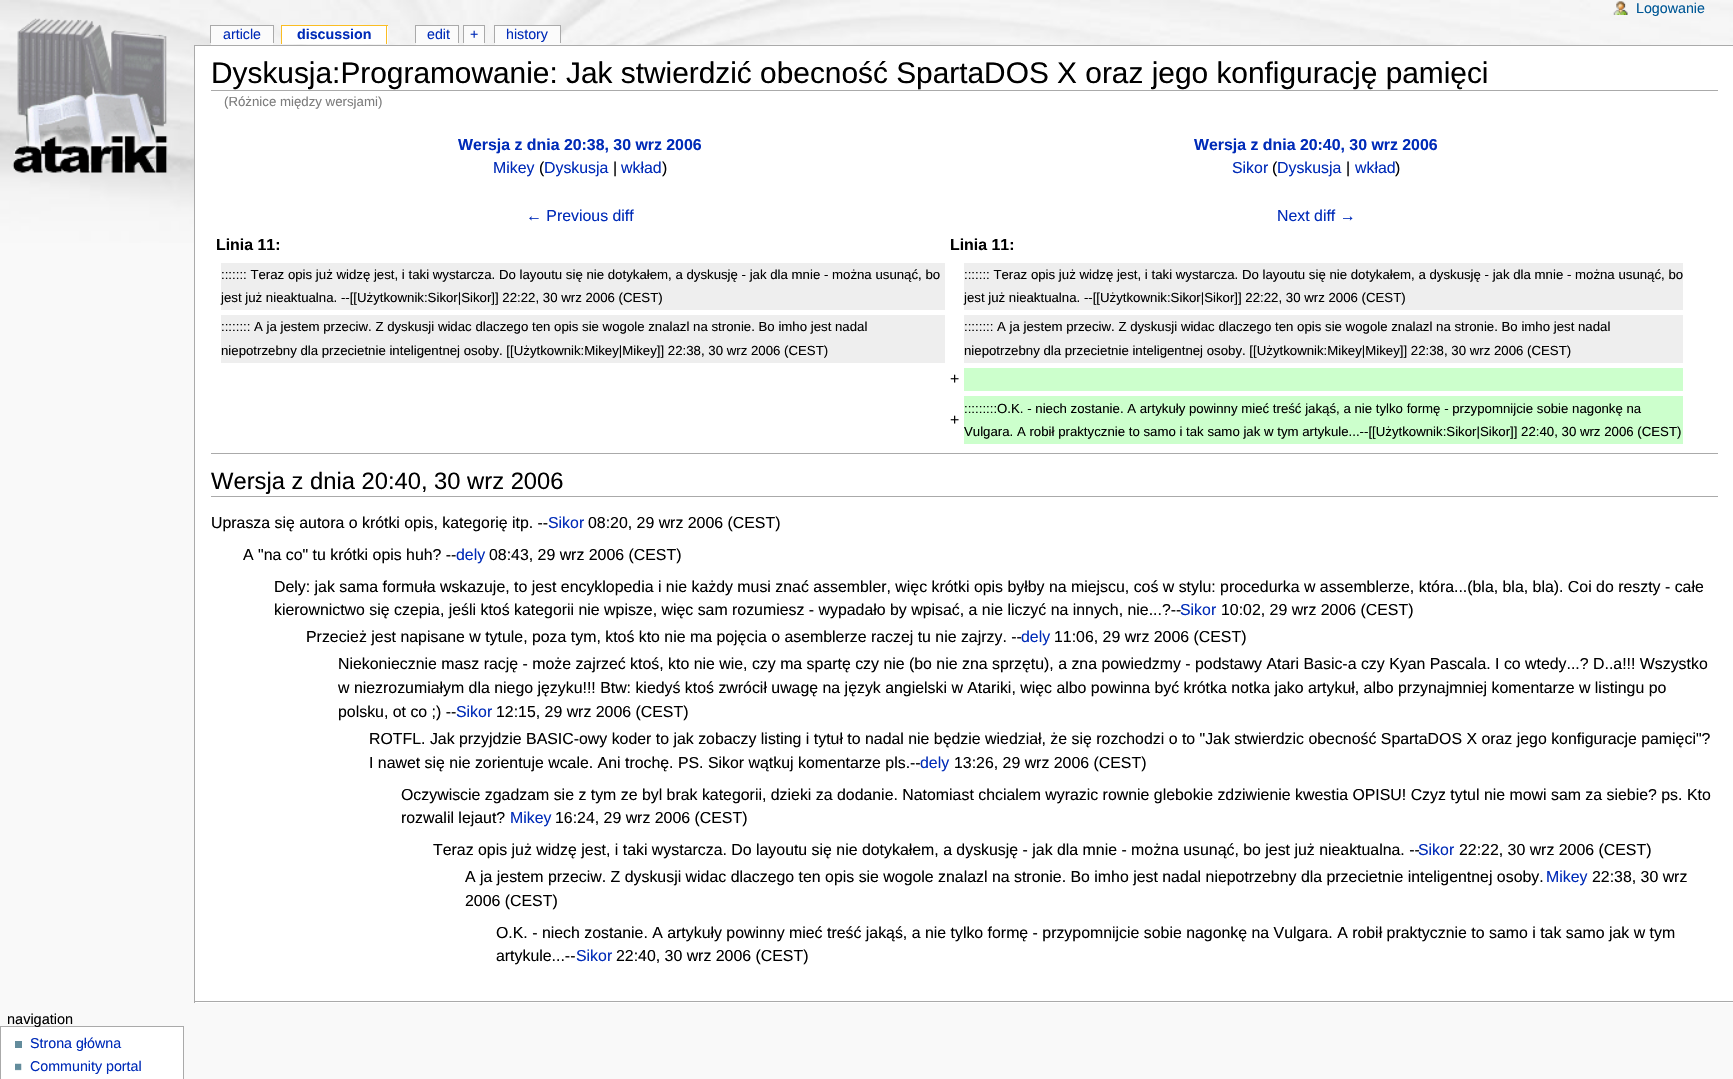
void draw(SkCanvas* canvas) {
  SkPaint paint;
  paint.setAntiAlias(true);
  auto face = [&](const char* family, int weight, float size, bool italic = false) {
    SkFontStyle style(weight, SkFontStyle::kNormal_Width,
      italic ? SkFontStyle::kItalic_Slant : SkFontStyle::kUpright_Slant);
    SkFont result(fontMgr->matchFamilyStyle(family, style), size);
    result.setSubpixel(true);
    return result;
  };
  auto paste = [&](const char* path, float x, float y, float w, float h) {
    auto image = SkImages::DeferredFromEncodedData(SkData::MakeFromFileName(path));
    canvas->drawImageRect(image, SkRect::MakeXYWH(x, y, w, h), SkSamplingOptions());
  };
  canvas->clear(0xfff9f9f9);
  paste("img/1.png", 0, 0, 1733, 243);
  paste("img/2.png", 1613, 1, 15, 14);
  paste("img/3.png", 12, 18, 156, 155);
  {
    const struct { float x, y, w, h; SkColor color; } items[] = {
      {210, 25, 64, 1, 0xffaaaaaa},
      {273, 25, 1, 18, 0xffaaaaaa},
      {210, 25, 1, 18, 0xffaaaaaa},
      {211, 26, 62, 19, 0xfffbfbfb},
      {282, 26, 106, 18, 0xffffffff},
      {281, 25, 107, 1, 0xfffabd23},
      {386, 25, 1, 19, 0xfffabd23},
      {281, 25, 1, 19, 0xfffabd23},
      {415, 25, 44, 1, 0xffaaaaaa},
      {458, 25, 1, 18, 0xffaaaaaa},
      {415, 25, 1, 18, 0xffaaaaaa},
      {416, 26, 42, 19, 0xfffbfbfb},
      {463, 25, 22, 1, 0xffaaaaaa},
      {484, 25, 1, 18, 0xffaaaaaa},
      {463, 25, 1, 18, 0xffaaaaaa},
      {464, 26, 20, 19, 0xfffbfbfb},
      {494, 25, 67, 1, 0xffaaaaaa},
      {560, 25, 1, 18, 0xffaaaaaa},
      {494, 25, 1, 18, 0xffaaaaaa},
      {495, 26, 65, 19, 0xfffbfbfb},
    };
    for (auto [x, y, w, h, color] : items) {
      paint.setColor(color);
      canvas->drawRect(SkRect::MakeXYWH(x, y, w, h), paint);
    }
  }
  paint.setColor(0xffffffff);
  canvas->drawRect(SkRect::MakeXYWH(0.5f, 1026.5f, 183, 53), paint);
  paint.setStroke(true);
  paint.setStrokeWidth(1);
  paint.setColor(0xffaaaaaa);
  canvas->drawRect(SkRect::MakeXYWH(0.5f, 1026.5f, 183, 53), paint);
  paint.setStroke(false);
  paint.setColor(0xff638c9c);
  canvas->drawRect(SkRect::MakeXYWH(15, 1041, 7, 7), paint);
  paste("img/4.png", 15, 1063, 7, 8);
  {
    const struct { float x, y, w, h; SkColor color; } items[] = {
      {195, 46, 1538, 957, 0xffffffff},
      {194, 45, 1539, 1, 0xffaaaaaa},
      {194, 1001, 1539, 1, 0xffaaaaaa},
      {194, 45, 1, 958, 0xffaaaaaa},
      {211, 90, 1507, 1, 0xffaaaaaa},
      {221, 263, 724, 47, 0xffeeeeee},
      {964, 263, 719, 47, 0xffeeeeee},
      {221, 315, 724, 48, 0xffeeeeee},
      {964, 315, 719, 48, 0xffeeeeee},
      {964, 368, 719, 23, 0xffccffcc},
      {964, 396, 719, 48, 0xffccffcc},
      {211, 453, 1507, 1, 0xffaaaaaa},
      {211, 496, 1507, 1, 0xffaaaaaa},
    };
    for (auto [x, y, w, h, color] : items) {
      paint.setColor(color);
      canvas->drawRect(SkRect::MakeXYWH(x, y, w, h), paint);
    }
  }
  auto f0 = face("Liberation Sans", 400, 14.25f);
  paint.setColor(0xff005896);
  canvas->drawString("Logowanie", 1636, 13, f0, paint);
  paint.setColor(0xff002bb8);
  canvas->drawString("article", 223, 39, f0, paint);
  auto f1 = face("Liberation Sans", 700, 14.25f);
  canvas->drawString("discussion", 297, 39, f1, paint);
  {
    const struct { const char* s; float x, y; } items[] = {
      {"edit", 427, 39},
      {"+", 470, 39},
      {"history", 506, 39},
    };
    for (auto [s, x, y] : items) {
      canvas->drawString(s, x, y, f0, paint);
    }
  }
  auto f2 = face("Liberation Sans", 400, 14.5f);
  paint.setColor(0xff000000);
  canvas->drawString("navigation", 7, 1024, f2, paint);
  paint.setColor(0xff002bb8);
  canvas->drawString("Strona główna", 30, 1048, f0, paint);
  canvas->drawString("Community portal", 30, 1071, f0, paint);
  auto f3 = face("Liberation Sans", 400, 29.85f);
  paint.setColor(0xff000000);
  canvas->drawString("Dyskusja:Programowanie: Jak stwierdzić obecność SpartaDOS X oraz jego konfigurację pamięci", 211, 83, f3, paint);
  auto f4 = face("Liberation Sans", 400, 13.25f);
  paint.setColor(0xff7d7d7d);
  canvas->drawString("(Różnice między wersjami)", 224, 106, f4, paint);
  auto f5 = face("Liberation Sans", 700, 15.88f);
  paint.setColor(0xff002bb8);
  canvas->drawString("Wersja z dnia 20:38, 30 wrz 2006", 458, 150, f5, paint);
  auto f6 = face("Liberation Sans", 400, 15.88f);
  canvas->drawString("Mikey", 493, 173, f6, paint);
  paint.setColor(0xff000000);
  canvas->drawString("(", 539, 173, f6, paint);
  paint.setColor(0xff002bb8);
  canvas->drawString("Dyskusja", 544, 173, f6, paint);
  paint.setColor(0xff000000);
  canvas->drawString("|", 613, 173, f6, paint);
  paint.setColor(0xff002bb8);
  canvas->drawString("wkład", 621, 173, f6, paint);
  paint.setColor(0xff000000);
  canvas->drawString(")", 662, 173, f6, paint);
  paint.setColor(0xff002bb8);
  canvas->drawString("← Previous diff", 526, 221, f6, paint);
  canvas->drawString("Wersja z dnia 20:40, 30 wrz 2006", 1194, 150, f5, paint);
  canvas->drawString("Sikor", 1232, 173, f6, paint);
  paint.setColor(0xff000000);
  canvas->drawString("(", 1272, 173, f6, paint);
  paint.setColor(0xff002bb8);
  canvas->drawString("Dyskusja", 1277, 173, f6, paint);
  paint.setColor(0xff000000);
  canvas->drawString("|", 1346, 173, f6, paint);
  paint.setColor(0xff002bb8);
  canvas->drawString("wkład", 1355, 173, f6, paint);
  paint.setColor(0xff000000);
  canvas->drawString(")", 1395, 173, f6, paint);
  paint.setColor(0xff002bb8);
  canvas->drawString("Next diff →", 1277, 221, f6, paint);
  paint.setColor(0xff000000);
  canvas->drawString("Linia 11:", 216, 250, f5, paint);
  canvas->drawString("Linia 11:", 950, 250, f5, paint);
  auto f7 = face("Liberation Sans", 400, 13.23f);
  {
    const struct { const char* s; float x, y; } items[] = {
      {"::::::: Teraz opis już widzę jest, i taki wystarcza. Do layoutu się nie dotykałem, a dyskusję - jak dla mnie - można usunąć, bo", 221, 279},
      {"jest już nieaktualna. --[[Użytkownik:Sikor|Sikor]] 22:22, 30 wrz 2006 (CEST)", 221, 302},
      {"::::::: Teraz opis już widzę jest, i taki wystarcza. Do layoutu się nie dotykałem, a dyskusję - jak dla mnie - można usunąć, bo", 964, 279},
      {"jest już nieaktualna. --[[Użytkownik:Sikor|Sikor]] 22:22, 30 wrz 2006 (CEST)", 964, 302},
      {":::::::: A ja jestem przeciw. Z dyskusji widac dlaczego ten opis sie wogole znalazl na stronie. Bo imho jest nadal", 221, 331},
      {"niepotrzebny dla przecietnie inteligentnej osoby. [[Użytkownik:Mikey|Mikey]] 22:38, 30 wrz 2006 (CEST)", 221, 355},
      {":::::::: A ja jestem przeciw. Z dyskusji widac dlaczego ten opis sie wogole znalazl na stronie. Bo imho jest nadal", 964, 331},
      {"niepotrzebny dla przecietnie inteligentnej osoby. [[Użytkownik:Mikey|Mikey]] 22:38, 30 wrz 2006 (CEST)", 964, 355},
    };
    for (auto [s, x, y] : items) {
      canvas->drawString(s, x, y, f7, paint);
    }
  }
  canvas->drawString("+", 950, 384, f6, paint);
  canvas->drawString("+", 950, 425, f6, paint);
  canvas->drawString(":::::::::O.K. - niech zostanie. A artykuły powinny mieć treść jakąś, a nie tylko formę - przypomnijcie sobie nagonkę na", 964, 413, f7, paint);
  canvas->drawString("Vulgara. A robił praktycznie to samo i tak samo jak w tym artykule...--[[Użytkownik:Sikor|Sikor]] 22:40, 30 wrz 2006 (CEST)", 964, 436, f7, paint);
  auto f8 = face("Liberation Sans", 400, 23.75f);
  canvas->drawString("Wersja z dnia 20:40, 30 wrz 2006", 211, 489, f8, paint);
  canvas->drawString("Uprasza się autora o krótki opis, kategorię itp. --", 211, 528, f6, paint);
  paint.setColor(0xff002bb8);
  canvas->drawString("Sikor", 548, 528, f6, paint);
  paint.setColor(0xff000000);
  canvas->drawString("08:20, 29 wrz 2006 (CEST)", 588, 528, f6, paint);
  canvas->drawString("A \"na co\" tu krótki opis huh? --", 243, 560, f6, paint);
  paint.setColor(0xff002bb8);
  canvas->drawString("dely", 456, 560, f6, paint);
  paint.setColor(0xff000000);
  {
    const struct { const char* s; float x, y; } items[] = {
      {"08:43, 29 wrz 2006 (CEST)", 489, 560},
      {"Dely: jak sama formuła wskazuje, to jest encyklopedia i nie każdy musi znać assembler, więc krótki opis byłby na miejscu, coś w stylu: procedurka w assemblerze, która...(bla, bla, bla). Coi do reszty - całe", 274, 592},
      {"kierownictwo się czepia, jeśli ktoś kategorii nie wpisze, więc sam rozumiesz - wypadało by wpisać, a nie liczyć na innych, nie...?--", 274, 615},
    };
    for (auto [s, x, y] : items) {
      canvas->drawString(s, x, y, f6, paint);
    }
  }
  paint.setColor(0xff002bb8);
  canvas->drawString("Sikor", 1180, 615, f6, paint);
  paint.setColor(0xff000000);
  canvas->drawString("10:02, 29 wrz 2006 (CEST)", 1221, 615, f6, paint);
  canvas->drawString("Przecież jest napisane w tytule, poza tym, ktoś kto nie ma pojęcia o asemblerze raczej tu nie zajrzy. --", 306, 642, f6, paint);
  paint.setColor(0xff002bb8);
  canvas->drawString("dely", 1021, 642, f6, paint);
  paint.setColor(0xff000000);
  {
    const struct { const char* s; float x, y; } items[] = {
      {"11:06, 29 wrz 2006 (CEST)", 1054, 642},
      {"Niekoniecznie masz rację - może zajrzeć ktoś, kto nie wie, czy ma spartę czy nie (bo nie zna sprzętu), a zna powiedzmy - podstawy Atari Basic-a czy Kyan Pascala. I co wtedy...? D..a!!! Wszystko", 338, 669},
      {"w niezrozumiałym dla niego języku!!! Btw: kiedyś ktoś zwrócił uwagę na język angielski w Atariki, więc albo powinna być krótka notka jako artykuł, albo przynajmniej komentarze w listingu po", 338, 693},
      {"polsku, ot co ;) --", 338, 717},
    };
    for (auto [s, x, y] : items) {
      canvas->drawString(s, x, y, f6, paint);
    }
  }
  paint.setColor(0xff002bb8);
  canvas->drawString("Sikor", 456, 717, f6, paint);
  paint.setColor(0xff000000);
  {
    const struct { const char* s; float x, y; } items[] = {
      {"12:15, 29 wrz 2006 (CEST)", 496, 717},
      {"ROTFL. Jak przyjdzie BASIC-owy koder to jak zobaczy listing i tytuł to nadal nie będzie wiedział, że się rozchodzi o to \"Jak stwierdzic obecność SpartaDOS X oraz jego konfiguracje pamięci\"?", 369, 744},
      {"I nawet się nie zorientuje wcale. Ani trochę. PS. Sikor wątkuj komentarze pls.--", 369, 768},
    };
    for (auto [s, x, y] : items) {
      canvas->drawString(s, x, y, f6, paint);
    }
  }
  paint.setColor(0xff002bb8);
  canvas->drawString("dely", 920, 768, f6, paint);
  paint.setColor(0xff000000);
  {
    const struct { const char* s; float x, y; } items[] = {
      {"13:26, 29 wrz 2006 (CEST)", 954, 768},
      {"Oczywiscie zgadzam sie z tym ze byl brak kategorii, dzieki za dodanie. Natomiast chcialem wyrazic rownie glebokie zdziwienie kwestia OPISU! Czyz tytul nie mowi sam za siebie? ps. Kto", 401, 800},
      {"rozwalil lejaut?", 401, 823},
    };
    for (auto [s, x, y] : items) {
      canvas->drawString(s, x, y, f6, paint);
    }
  }
  paint.setColor(0xff002bb8);
  canvas->drawString("Mikey", 510, 823, f6, paint);
  paint.setColor(0xff000000);
  canvas->drawString("16:24, 29 wrz 2006 (CEST)", 555, 823, f6, paint);
  canvas->drawString("Teraz opis już widzę jest, i taki wystarcza. Do layoutu się nie dotykałem, a dyskusję - jak dla mnie - można usunąć, bo jest już nieaktualna. --", 433, 855, f6, paint);
  paint.setColor(0xff002bb8);
  canvas->drawString("Sikor", 1418, 855, f6, paint);
  paint.setColor(0xff000000);
  canvas->drawString("22:22, 30 wrz 2006 (CEST)", 1459, 855, f6, paint);
  canvas->drawString("A ja jestem przeciw. Z dyskusji widac dlaczego ten opis sie wogole znalazl na stronie. Bo imho jest nadal niepotrzebny dla przecietnie inteligentnej osoby.", 465, 882, f6, paint);
  paint.setColor(0xff002bb8);
  canvas->drawString("Mikey", 1546, 882, f6, paint);
  paint.setColor(0xff000000);
  {
    const struct { const char* s; float x, y; } items[] = {
      {"22:38, 30 wrz", 1592, 882},
      {"2006 (CEST)", 465, 906},
      {"O.K. - niech zostanie. A artykuły powinny mieć treść jakąś, a nie tylko formę - przypomnijcie sobie nagonkę na Vulgara. A robił praktycznie to samo i tak samo jak w tym", 496, 938},
      {"artykule...--", 496, 961},
    };
    for (auto [s, x, y] : items) {
      canvas->drawString(s, x, y, f6, paint);
    }
  }
  paint.setColor(0xff002bb8);
  canvas->drawString("Sikor", 576, 961, f6, paint);
  paint.setColor(0xff000000);
  canvas->drawString("22:40, 30 wrz 2006 (CEST)", 616, 961, f6, paint);
}
